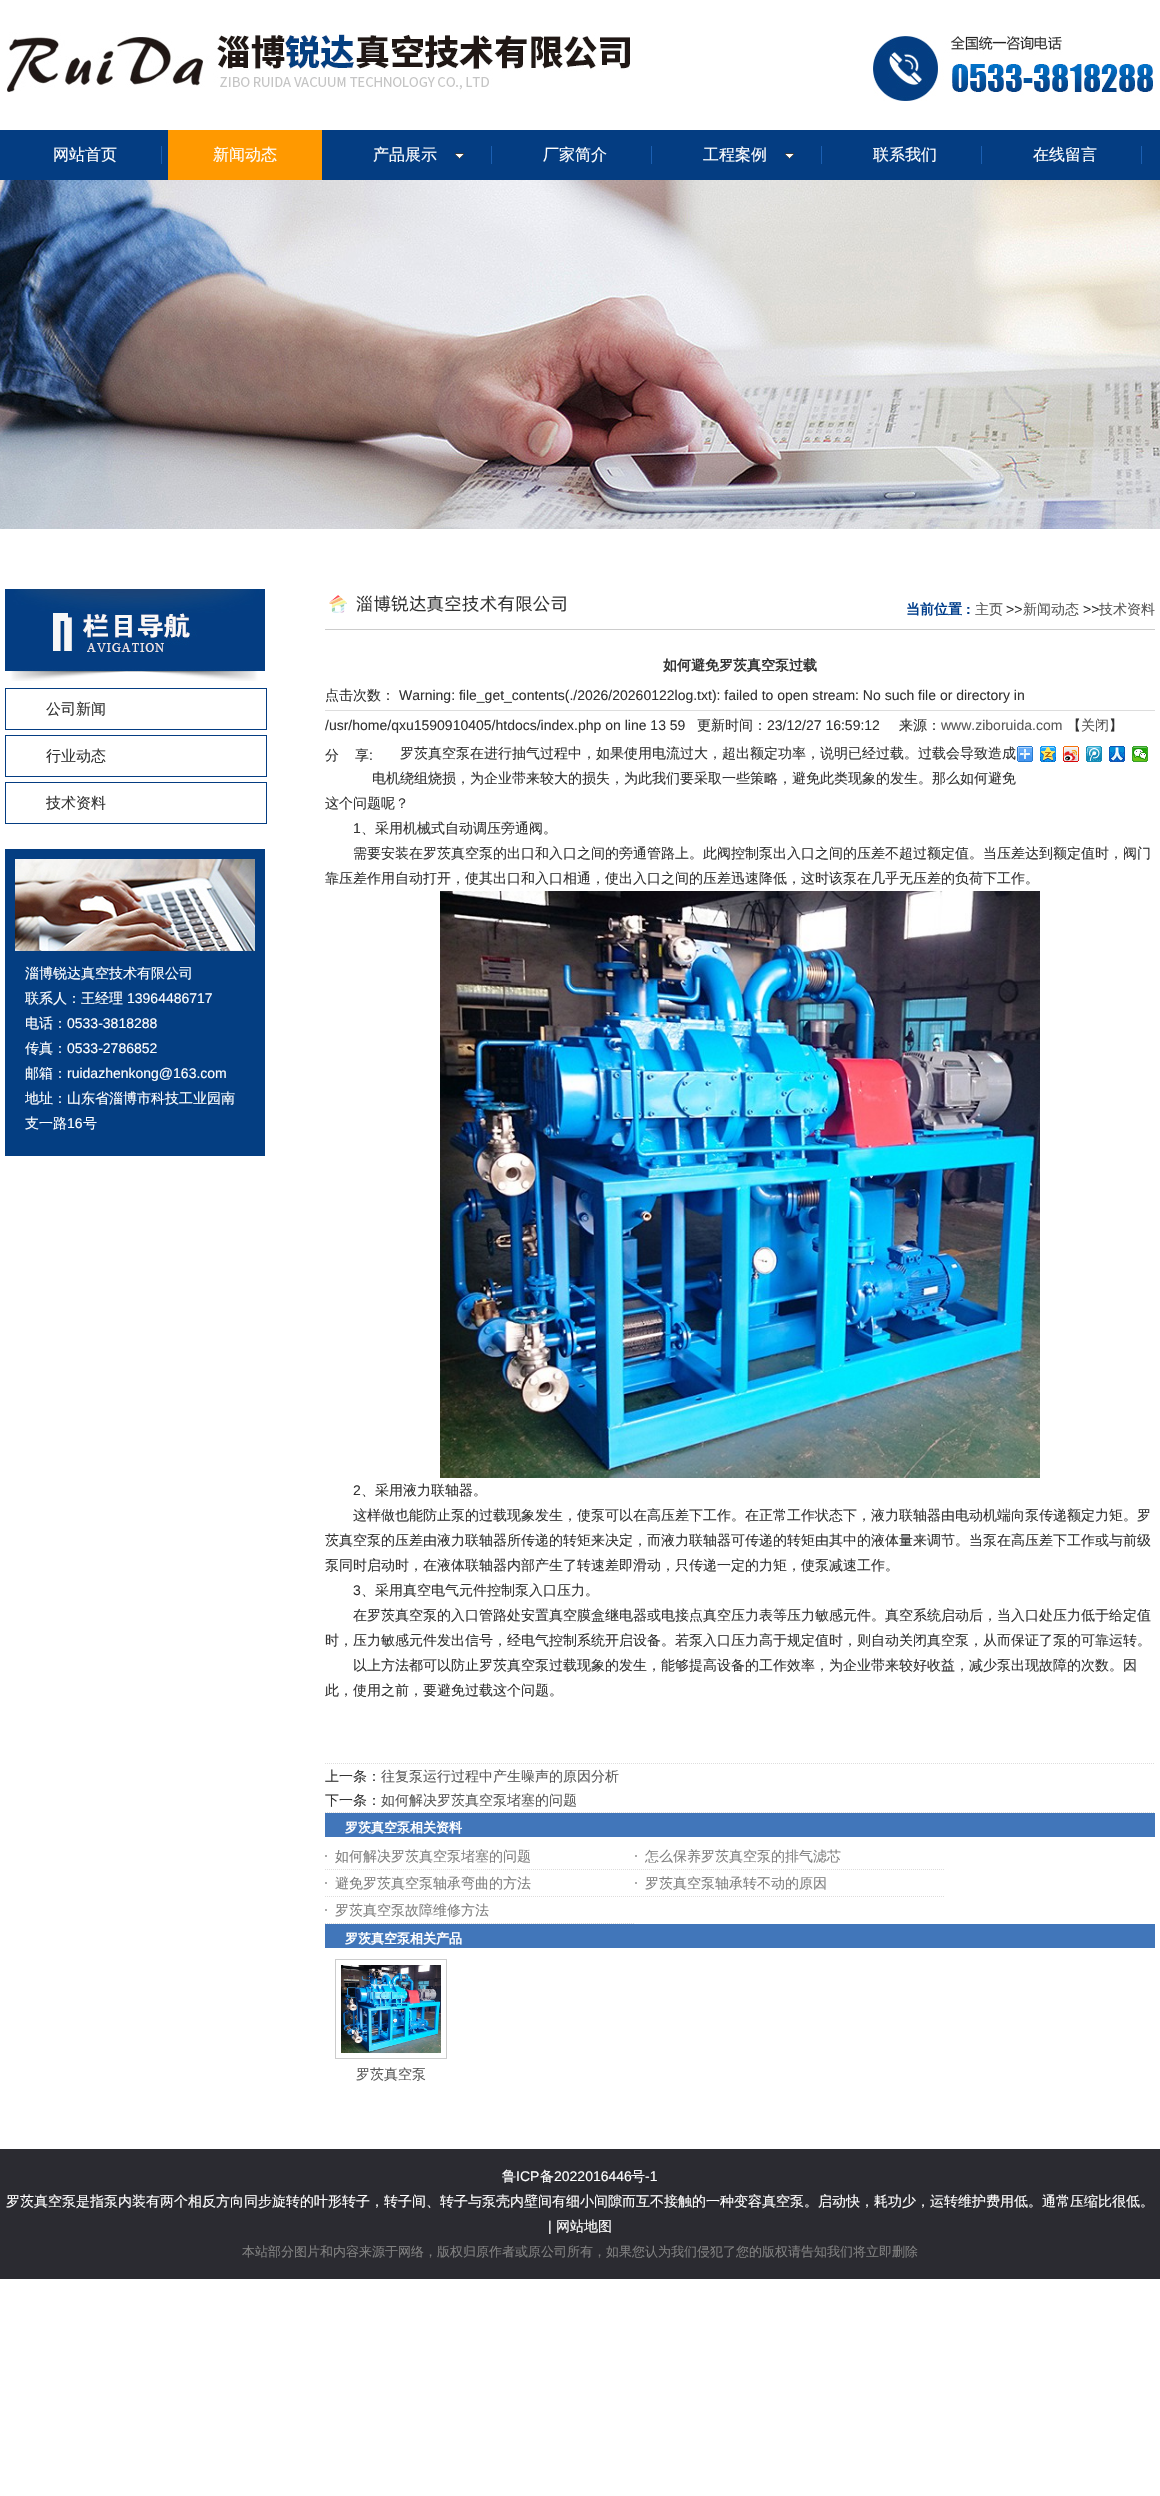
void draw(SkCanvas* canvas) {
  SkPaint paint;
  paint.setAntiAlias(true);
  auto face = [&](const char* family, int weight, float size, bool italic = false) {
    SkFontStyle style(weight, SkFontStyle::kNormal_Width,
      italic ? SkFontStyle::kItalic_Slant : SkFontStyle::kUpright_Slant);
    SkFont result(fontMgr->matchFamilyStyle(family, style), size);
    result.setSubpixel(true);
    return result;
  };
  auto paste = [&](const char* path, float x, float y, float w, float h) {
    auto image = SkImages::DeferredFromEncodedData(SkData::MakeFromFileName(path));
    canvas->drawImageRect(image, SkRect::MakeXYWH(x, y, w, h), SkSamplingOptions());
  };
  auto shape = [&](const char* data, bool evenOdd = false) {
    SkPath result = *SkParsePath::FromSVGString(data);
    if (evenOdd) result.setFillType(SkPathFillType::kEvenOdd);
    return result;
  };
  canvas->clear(0xffffffff);
  paint.setColor(0xff043d82);
  canvas->drawRect(SkRect::MakeXYWH(0, 130, 1160, 50), paint);
  paste("img/1.png", 7, 32, 623, 60);
  paste("img/2.png", 873, 36, 280, 65);
  {
    const struct { float x, y, w, h; SkColor color; } items[] = {
      {161, 146, 1, 18, 0xff1b5fb2},
      {168, 130, 154, 50, 0xffff9900},
      {491, 146, 1, 18, 0xff1b5fb2},
    };
    for (auto [x, y, w, h, color] : items) {
      paint.setColor(color);
      canvas->drawRect(SkRect::MakeXYWH(x, y, w, h), paint);
    }
  }
  paste("img/3.png", 455, 153, 9, 6);
  canvas->drawRect(SkRect::MakeXYWH(651, 146, 1, 18), paint);
  canvas->drawRect(SkRect::MakeXYWH(821, 146, 1, 18), paint);
  paste("img/3.png", 785, 153, 9, 6);
  canvas->drawRect(SkRect::MakeXYWH(981, 146, 1, 18), paint);
  canvas->drawRect(SkRect::MakeXYWH(1141, 146, 1, 18), paint);
  paste("img/4.png", 0, 180, 1160, 349);
  paste("img/5.png", 5, 589, 260, 92);
  paint.setStroke(true);
  paint.setStrokeWidth(1);
  paint.setColor(0xff043d82);
  canvas->drawRect(SkRect::MakeXYWH(5.5f, 688.5f, 261, 41), paint);
  canvas->drawRect(SkRect::MakeXYWH(5.5f, 735.5f, 261, 41), paint);
  canvas->drawRect(SkRect::MakeXYWH(5.5f, 782.5f, 261, 41), paint);
  paint.setStroke(false);
  paint.setColor(0xff043e82);
  canvas->drawRect(SkRect::MakeXYWH(5, 849, 260, 307), paint);
  paste("img/6.png", 15, 859, 240, 92);
  paste("img/7.png", 329, 595, 237, 18);
  paint.setColor(0xffcccccc);
  canvas->drawRect(SkRect::MakeXYWH(325, 629, 830, 1), paint);
  paint.setColor(0xffdddddd);
  canvas->drawRect(SkRect::MakeXYWH(325, 710, 830, 1), paint);
  paste("img/8.png", 1017, 746, 16, 16);
  paste("img/9.png", 1040, 746, 16, 16);
  paste("img/10.png", 1063, 746, 16, 16);
  paste("img/11.png", 1086, 746, 16, 16);
  paste("img/12.png", 1109, 746, 16, 16);
  paste("img/13.png", 1132, 746, 16, 16);
  paste("img/14.png", 440, 891, 600, 587);
  paint.setStroke(true);
  paint.setPathEffect(SkDashPathEffect::Make({{1, 1}}, 0));
  canvas->drawPath(shape("M325 1763.5H1155"), paint);
  paint.setPathEffect(nullptr);
  paint.setPathEffect(SkDashPathEffect::Make({{1, 1}}, 0));
  canvas->drawPath(shape("M325 1812.5H1155"), paint);
  paint.setPathEffect(nullptr);
  paint.setStroke(false);
  paint.setColor(0xff4176ba);
  canvas->drawRect(SkRect::MakeXYWH(325, 1813, 830, 24), paint);
  paint.setColor(0xffaaaaaa);
  canvas->drawRect(SkRect::MakeXYWH(325, 1855, 2, 2), paint);
  paint.setStroke(true);
  paint.setColor(0xffdddddd);
  paint.setPathEffect(SkDashPathEffect::Make({{1, 1}}, 0));
  canvas->drawPath(shape("M325 1869.5H635"), paint);
  paint.setPathEffect(nullptr);
  paint.setStroke(false);
  paint.setColor(0xffaaaaaa);
  canvas->drawRect(SkRect::MakeXYWH(635, 1855, 2, 2), paint);
  paint.setStroke(true);
  paint.setColor(0xffdddddd);
  paint.setPathEffect(SkDashPathEffect::Make({{1, 1}}, 0));
  canvas->drawPath(shape("M635 1869.5H945"), paint);
  paint.setPathEffect(nullptr);
  paint.setStroke(false);
  paint.setColor(0xffaaaaaa);
  canvas->drawRect(SkRect::MakeXYWH(325, 1882, 2, 2), paint);
  paint.setStroke(true);
  paint.setColor(0xffdddddd);
  paint.setPathEffect(SkDashPathEffect::Make({{1, 1}}, 0));
  canvas->drawPath(shape("M325 1896.5H635"), paint);
  paint.setPathEffect(nullptr);
  paint.setStroke(false);
  paint.setColor(0xffaaaaaa);
  canvas->drawRect(SkRect::MakeXYWH(635, 1882, 2, 2), paint);
  paint.setStroke(true);
  paint.setColor(0xffdddddd);
  paint.setPathEffect(SkDashPathEffect::Make({{1, 1}}, 0));
  canvas->drawPath(shape("M635 1896.5H945"), paint);
  paint.setPathEffect(nullptr);
  paint.setStroke(false);
  paint.setColor(0xffaaaaaa);
  canvas->drawRect(SkRect::MakeXYWH(325, 1909, 2, 2), paint);
  paint.setStroke(true);
  paint.setColor(0xffdddddd);
  paint.setPathEffect(SkDashPathEffect::Make({{1, 1}}, 0));
  canvas->drawPath(shape("M325 1923.5H635"), paint);
  paint.setPathEffect(nullptr);
  paint.setStroke(false);
  paint.setColor(0xff4176ba);
  canvas->drawRect(SkRect::MakeXYWH(325, 1924, 830, 24), paint);
  paint.setStroke(true);
  paint.setColor(0xffcccccc);
  canvas->drawRect(SkRect::MakeXYWH(335.5f, 1959.5f, 111, 99), paint);
  paste("img/15.png", 341, 1965, 100, 88);
  paint.setStroke(false);
  paint.setColor(0xff2b2b31);
  canvas->drawRect(SkRect::MakeXYWH(0, 2149, 1160, 130), paint);
  auto f0 = face("WenQuanYi Zen Hei", 500, 16);
  paint.setColor(0xffffffff);
  {
    const struct { const char* s; float x, y; } items[] = {
      {"网站首页", 53, 160},
      {"新闻动态", 213, 160},
      {"产品展示", 373, 160},
      {"厂家简介", 543, 160},
      {"工程案例", 703, 160},
      {"联系我们", 873, 160},
      {"在线留言", 1033, 160},
    };
    for (auto [s, x, y] : items) {
      canvas->drawString(s, x, y, f0, paint);
    }
  }
  auto f1 = face("WenQuanYi Zen Hei", 500, 15);
  paint.setColor(0xff333333);
  {
    const struct { const char* s; float x, y; } items[] = {
      {"公司新闻", 46, 714},
      {"行业动态", 46, 761},
      {"技术资料", 46, 808},
    };
    for (auto [s, x, y] : items) {
      canvas->drawString(s, x, y, f1, paint);
    }
  }
  auto f2 = face("WenQuanYi Zen Hei", 500, 14);
  paint.setColor(0xffffffff);
  canvas->drawString("淄博锐达真空技术有限公司", 25, 978, f2, paint);
  canvas->drawString("联系人：王经理", 25, 1003, f2, paint);
  auto f3 = face("Liberation Sans", 400, 14);
  canvas->drawString("13964486717", 127, 1003, f3, paint);
  canvas->drawString("电话：", 25, 1028, f2, paint);
  canvas->drawString("0533-3818288", 67, 1028, f3, paint);
  canvas->drawString("传真：", 25, 1053, f2, paint);
  canvas->drawString("0533-2786852", 67, 1053, f3, paint);
  canvas->drawString("邮箱：", 25, 1078, f2, paint);
  canvas->drawString("ruidazhenkong@163.com", 67, 1078, f3, paint);
  canvas->drawString("地址：山东省淄博市科技工业园南", 25, 1103, f2, paint);
  canvas->drawString("支一路", 25, 1128, f2, paint);
  canvas->drawString("16", 67, 1128, f3, paint);
  canvas->drawString("号", 83, 1128, f2, paint);
  auto f4 = face("WenQuanYi Zen Hei", 700, 14);
  paint.setColor(0xff013e8b);
  canvas->drawString("当前位置", 906, 614, f4, paint);
  auto f5 = face("Liberation Sans", 700, 14);
  canvas->drawString(":", 966, 614, f5, paint);
  paint.setColor(0xff595959);
  canvas->drawString("主页", 975, 614, f2, paint);
  paint.setColor(0xff333333);
  canvas->drawString(">>", 1006, 614, f3, paint);
  paint.setColor(0xff595959);
  canvas->drawString("新闻动态", 1023, 614, f2, paint);
  paint.setColor(0xff333333);
  canvas->drawString(">>", 1083, 614, f3, paint);
  paint.setColor(0xff595959);
  canvas->drawString("技术资料", 1099, 614, f2, paint);
  paint.setColor(0xff333333);
  canvas->drawString("如何避免罗茨真空泵过载", 663, 670, f4, paint);
  canvas->drawString("点击次数：", 325, 700, f2, paint);
  canvas->drawString("Warning: file_get_contents(./2026/20260122log.txt): failed to open stream: No such file or directory in", 399, 700, f3, paint);
  canvas->drawString("/usr/home/qxu1590910405/htdocs/index.php on line 13 59", 325, 730, f3, paint);
  canvas->drawString("更新时间：", 697, 730, f2, paint);
  canvas->drawString("23/12/27 16:59:12", 767, 730, f3, paint);
  canvas->drawString("来源：", 899, 730, f2, paint);
  paint.setColor(0xff595959);
  canvas->drawString("www.ziboruida.com", 941, 730, f3, paint);
  paint.setColor(0xff333333);
  canvas->drawString("【", 1067, 730, f2, paint);
  paint.setColor(0xff595959);
  canvas->drawString("关闭", 1081, 730, f2, paint);
  paint.setColor(0xff333333);
  {
    const struct { const char* s; float x, y; } items[] = {
      {"】", 1109, 730},
      {"分", 325, 760},
      {"享", 355, 760},
    };
    for (auto [s, x, y] : items) {
      canvas->drawString(s, x, y, f2, paint);
    }
  }
  canvas->drawString(":", 369, 760, f3, paint);
  {
    const struct { const char* s; float x, y; } items[] = {
      {"罗茨真空泵在进行抽气过程中，如果使用电流过大，超出额定功率，说明已经过载。过载会导致造成", 400, 758},
      {"电机绕组烧损，为企业带来较大的损失，为此我们要采取一些策略，避免此类现象的发生。那么如何避免", 372, 783},
      {"这个问题呢？", 325, 808},
    };
    for (auto [s, x, y] : items) {
      canvas->drawString(s, x, y, f2, paint);
    }
  }
  canvas->drawString("1", 353, 833, f3, paint);
  {
    const struct { const char* s; float x, y; } items[] = {
      {"、采用机械式自动调压旁通阀。", 361, 833},
      {"需要安装在罗茨真空泵的出口和入口之间的旁通管路上。此阀控制泵出入口之间的压差不超过额定值。当压差达到额定值时，阀门", 353, 858},
      {"靠压差作用自动打开，使其出口和入口相通，使出入口之间的压差迅速降低，这时该泵在几乎无压差的负荷下工作。", 325, 883},
    };
    for (auto [s, x, y] : items) {
      canvas->drawString(s, x, y, f2, paint);
    }
  }
  canvas->drawString("2", 353, 1495, f3, paint);
  {
    const struct { const char* s; float x, y; } items[] = {
      {"、采用液力联轴器。", 361, 1495},
      {"这样做也能防止泵的过载现象发生，使泵可以在高压差下工作。在正常工作状态下，液力联轴器由电动机端向泵传递额定力矩。罗", 353, 1520},
      {"茨真空泵的压差由液力联轴器所传递的转矩来决定，而液力联轴器可传递的转矩由其中的液体量来调节。当泵在高压差下工作或与前级", 325, 1545},
      {"泵同时启动时，在液体联轴器内部产生了转速差即滑动，只传递一定的力矩，使泵减速工作。", 325, 1570},
    };
    for (auto [s, x, y] : items) {
      canvas->drawString(s, x, y, f2, paint);
    }
  }
  canvas->drawString("3", 353, 1595, f3, paint);
  {
    const struct { const char* s; float x, y; } items[] = {
      {"、采用真空电气元件控制泵入口压力。", 361, 1595},
      {"在罗茨真空泵的入口管路处安置真空膜盒继电器或电接点真空压力表等压力敏感元件。真空系统启动后，当入口处压力低于给定值", 353, 1620},
      {"时，压力敏感元件发出信号，经电气控制系统开启设备。若泵入口压力高于规定值时，则自动关闭真空泵，从而保证了泵的可靠运转。", 325, 1645},
      {"以上方法都可以防止罗茨真空泵过载现象的发生，能够提高设备的工作效率，为企业带来较好收益，减少泵出现故障的次数。因", 353, 1670},
      {"此，使用之前，要避免过载这个问题。", 325, 1695},
      {"上一条：", 325, 1781},
    };
    for (auto [s, x, y] : items) {
      canvas->drawString(s, x, y, f2, paint);
    }
  }
  paint.setColor(0xff595959);
  canvas->drawString("往复泵运行过程中产生噪声的原因分析", 381, 1781, f2, paint);
  paint.setColor(0xff333333);
  canvas->drawString("下一条：", 325, 1805, f2, paint);
  paint.setColor(0xff595959);
  canvas->drawString("如何解决罗茨真空泵堵塞的问题", 381, 1805, f2, paint);
  auto f6 = face("WenQuanYi Zen Hei", 700, 13);
  paint.setColor(0xffffffff);
  canvas->drawString("罗茨真空泵相关资料", 345, 1832, f6, paint);
  paint.setColor(0xff808080);
  {
    const struct { const char* s; float x, y; } items[] = {
      {"如何解决罗茨真空泵堵塞的问题", 335, 1861},
      {"怎么保养罗茨真空泵的排气滤芯", 645, 1861},
      {"避免罗茨真空泵轴承弯曲的方法", 335, 1888},
      {"罗茨真空泵轴承转不动的原因", 645, 1888},
      {"罗茨真空泵故障维修方法", 335, 1915},
    };
    for (auto [s, x, y] : items) {
      canvas->drawString(s, x, y, f2, paint);
    }
  }
  paint.setColor(0xffffffff);
  canvas->drawString("罗茨真空泵相关产品", 345, 1943, f6, paint);
  paint.setColor(0xff595959);
  canvas->drawString("罗茨真空泵", 356, 2079, f2, paint);
  paint.setColor(0xffffffff);
  canvas->drawString("鲁", 502, 2181, f2, paint);
  canvas->drawString("ICP", 516, 2181, f3, paint);
  canvas->drawString("备", 540, 2181, f2, paint);
  canvas->drawString("2022016446", 554, 2181, f3, paint);
  canvas->drawString("号", 631, 2181, f2, paint);
  canvas->drawString("-1", 645, 2181, f3, paint);
  canvas->drawString("罗茨真空泵是指泵内装有两个相反方向同步旋转的叶形转子，转子间、转子与泵壳内壁间有细小间隙而互不接触的一种变容真空泵。启动快，耗功少，运转维护费用低。通常压缩比很低。", 6, 2206, f2, paint);
  canvas->drawString("|", 548, 2231, f3, paint);
  canvas->drawString("网站地图", 556, 2231, f2, paint);
  auto f7 = face("WenQuanYi Zen Hei", 500, 13);
  paint.setColor(0xff808080);
  canvas->drawString("本站部分图片和内容来源于网络，版权归原作者或原公司所有，如果您认为我们侵犯了您的版权请告知我们将立即删除", 242, 2256, f7, paint);
}
